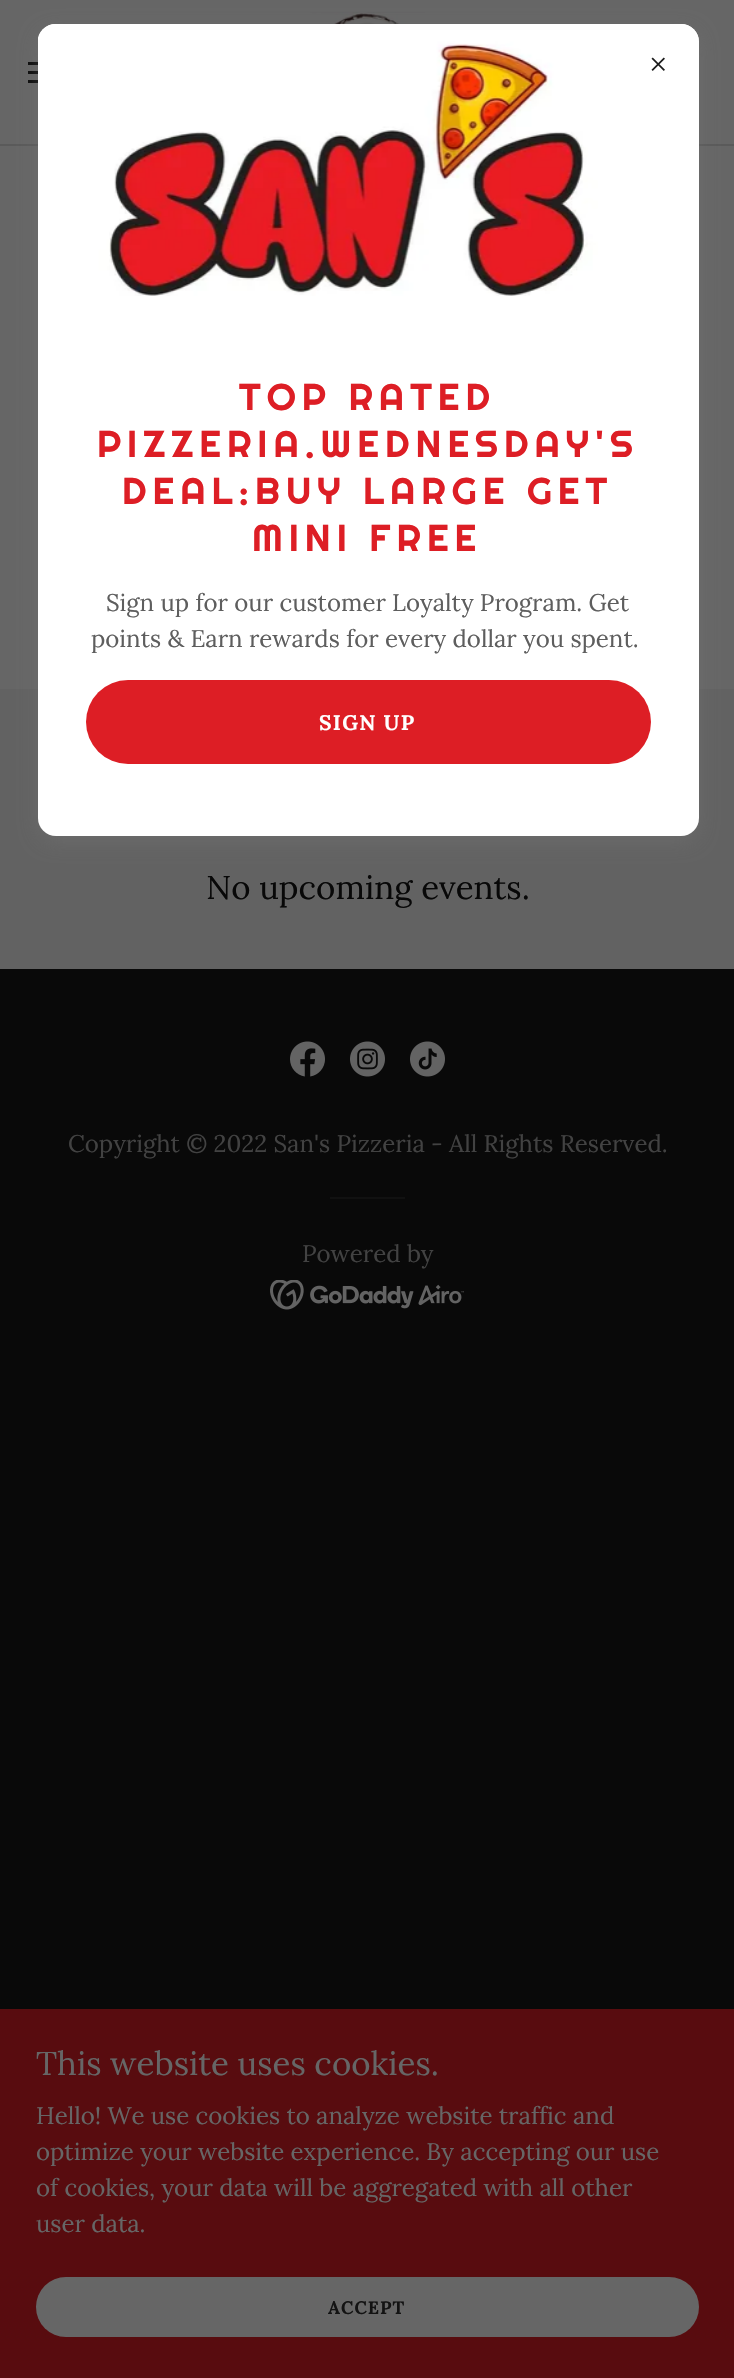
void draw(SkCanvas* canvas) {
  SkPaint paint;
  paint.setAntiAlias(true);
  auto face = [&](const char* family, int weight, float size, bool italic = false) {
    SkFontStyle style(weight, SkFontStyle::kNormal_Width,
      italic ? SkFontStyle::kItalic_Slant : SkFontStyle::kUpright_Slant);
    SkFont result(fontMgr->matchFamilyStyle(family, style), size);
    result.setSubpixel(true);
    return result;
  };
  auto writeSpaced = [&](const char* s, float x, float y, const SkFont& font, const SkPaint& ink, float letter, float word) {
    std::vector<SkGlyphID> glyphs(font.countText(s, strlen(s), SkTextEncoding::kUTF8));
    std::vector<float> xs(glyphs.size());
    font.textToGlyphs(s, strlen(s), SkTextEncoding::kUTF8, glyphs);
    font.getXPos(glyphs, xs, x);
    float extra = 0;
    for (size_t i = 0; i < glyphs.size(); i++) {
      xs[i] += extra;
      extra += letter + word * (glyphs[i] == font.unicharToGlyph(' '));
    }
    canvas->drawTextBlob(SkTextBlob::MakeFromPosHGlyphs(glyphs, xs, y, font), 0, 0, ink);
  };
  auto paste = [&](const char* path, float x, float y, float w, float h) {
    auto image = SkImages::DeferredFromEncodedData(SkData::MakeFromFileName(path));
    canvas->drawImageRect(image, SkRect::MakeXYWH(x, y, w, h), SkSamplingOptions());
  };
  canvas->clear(0xff090909);
  paint.setColor(0xff666666);
  canvas->drawRect(SkRect::MakeXYWH(0, 0, 734, 144), paint);
  paste("img/1.png", 310, 12, 115, 12);
  {
    const struct { float x, y, w, h; SkColor color; } items[] = {
      {28, 62, 10, 3, 0xff0b0b0b},
      {28, 71, 10, 3, 0xff0b0b0b},
      {28, 80, 10, 3, 0xff0b0b0b},
      {0, 144, 734, 2, 0xff5a5a5a},
      {0, 146, 734, 543, 0xff666666},
      {0, 689, 734, 280, 0xff626262},
    };
    for (auto [x, y, w, h, color] : items) {
      paint.setColor(color);
      canvas->drawRect(SkRect::MakeXYWH(x, y, w, h), paint);
    }
  }
  paint.setColor(0x66757575);
  paint.setMaskFilter(SkMaskFilter::MakeBlur(kNormal_SkBlurStyle, 9));
  canvas->drawRoundRect(SkRect::MakeXYWH(38, 30, 661, 812), 18, 18, paint);
  paint.setMaskFilter(nullptr);
  paint.setColor(0xffffffff);
  canvas->drawRoundRect(SkRect::MakeXYWH(38, 24, 661, 812), 18, 18, paint);
  paste("img/3.png", 38, 24, 661, 272);
  paste("img/2.png", 651, 57, 14, 14);
  paint.setColor(0xffdd1e25);
  canvas->drawRoundRect(SkRect::MakeXYWH(86, 680, 565, 84), 42, 42, paint);
  paste("img/4.png", 290, 1041, 35, 36);
  paste("img/5.png", 350, 1041, 35, 36);
  paste("img/6.png", 410, 1041, 35, 36);
  paint.setColor(0xff111111);
  canvas->drawRect(SkRect::MakeXYWH(330, 1197, 75, 2), paint);
  paste("img/7.png", 270, 1280, 194, 30);
  paint.setColor(0xff580c0f);
  canvas->drawRect(SkRect::MakeXYWH(0, 2009, 734, 369), paint);
  paint.setColor(0xff666666);
  canvas->drawRoundRect(SkRect::MakeXYWH(36, 2277, 663, 60), 30, 30, paint);
  auto f0 = face("Righteous", 400, 37.5f);
  paint.setColor(0xffdd1e25);
  {
    const struct { const char* s; float x, y; } items[] = {
      {"TOP RATED", 239, 410},
      {"PIZZERIA.WEDNESDAY'S", 97, 457},
      {"DEAL:BUY LARGE GET", 122, 504},
      {"MINI FREE", 252, 551},
    };
    for (auto [s, x, y] : items) {
      writeSpaced(s, x, y, f0, paint, 6, 0);
    }
  }
  auto f1 = face("Lora", 400, 24);
  paint.setColor(0xff5e5e5e);
  canvas->drawString("Sign up for our customer Loyalty Program. Get", 106, 611, f1, paint);
  canvas->drawString("points & Earn rewards for every dollar you spent.", 91, 647, f1, paint);
  auto f2 = face("Lora", 700, 21);
  paint.setColor(0xffffffff);
  writeSpaced("SIGN UP", 319, 730, f2, paint, 1.25f, 0);
  auto f3 = face("Lora", 400, 33);
  paint.setColor(0xff080808);
  canvas->drawString("No upcoming events.", 206, 899, f3, paint);
  paint.setColor(0xff424242);
  canvas->drawString("Copyright © 2022 San's Pizzeria - All Rights Reserved.", 68, 1152, f1, paint);
  canvas->drawString("Powered by", 302, 1262, f1, paint);
  paint.setColor(0xff666666);
  canvas->drawString("This website uses cookies.", 36, 2075, f3, paint);
  {
    const struct { const char* s; float x, y; } items[] = {
      {"Hello! We use cookies to analyze website traffic and", 36, 2124},
      {"optimize your website experience. By accepting our use", 36, 2160},
      {"of cookies, your data will be aggregated with all other", 36, 2196},
      {"user data.", 36, 2232},
    };
    for (auto [s, x, y] : items) {
      canvas->drawString(s, x, y, f1, paint);
    }
  }
  auto f4 = face("Lora", 700, 18);
  paint.setColor(0xff131313);
  writeSpaced("ACCEPT", 328, 2314, f4, paint, 1, 0);
}
